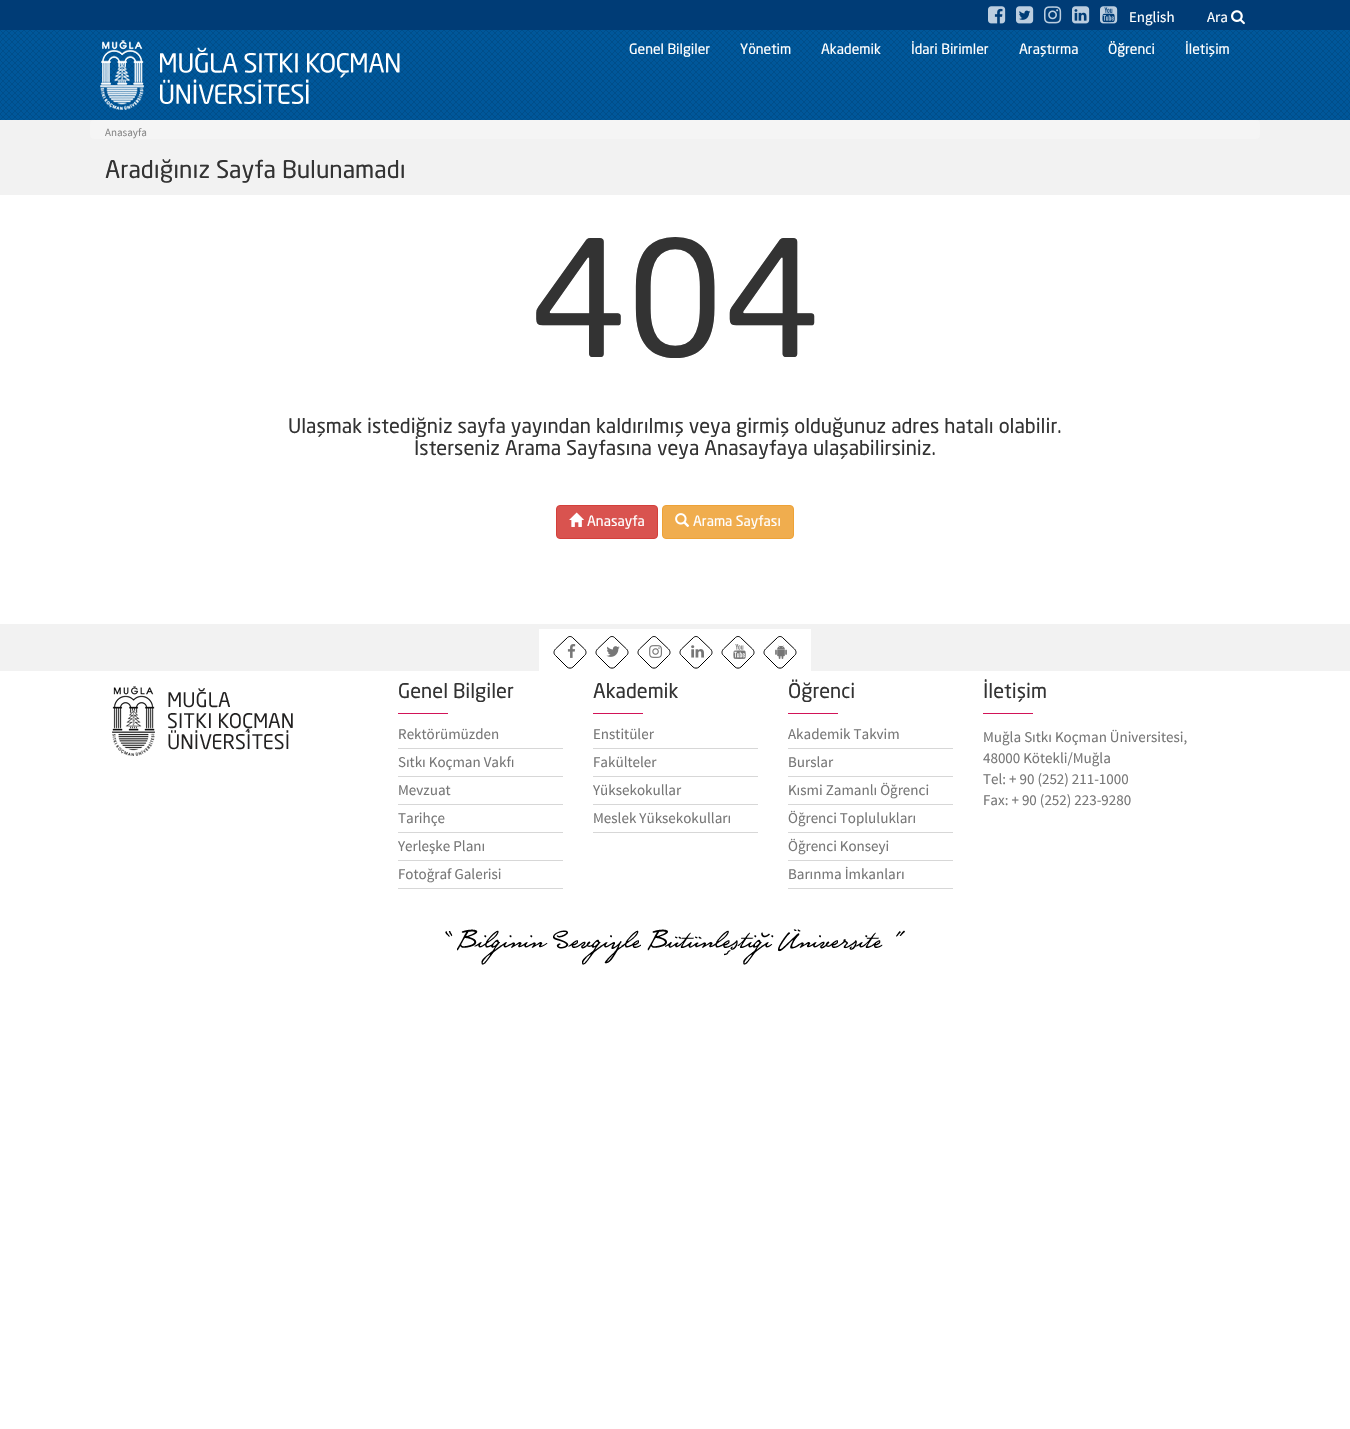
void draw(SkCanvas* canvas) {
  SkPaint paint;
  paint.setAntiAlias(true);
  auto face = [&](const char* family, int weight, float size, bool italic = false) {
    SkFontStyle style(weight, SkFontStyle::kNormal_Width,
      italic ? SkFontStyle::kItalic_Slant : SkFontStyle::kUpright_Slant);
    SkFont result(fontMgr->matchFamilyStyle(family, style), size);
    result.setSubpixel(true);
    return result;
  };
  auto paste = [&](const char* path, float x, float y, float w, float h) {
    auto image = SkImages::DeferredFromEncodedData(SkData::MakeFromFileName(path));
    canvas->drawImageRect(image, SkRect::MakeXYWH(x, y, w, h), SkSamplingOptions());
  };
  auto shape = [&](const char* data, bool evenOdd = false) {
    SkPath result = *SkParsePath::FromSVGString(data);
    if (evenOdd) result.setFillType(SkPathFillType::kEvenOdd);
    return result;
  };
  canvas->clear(0xffffffff);
  paint.setColor(0xff003c76);
  canvas->drawRect(SkRect::MakeXYWH(0, 0, 1350, 30), paint);
  paste("img/1.png", 988, 6, 18, 18);
  paste("img/2.png", 1016, 6, 18, 18);
  paste("img/3.png", 1044, 6, 18, 18);
  paste("img/4.png", 1072, 6, 18, 18);
  paste("img/5.png", 1100, 6, 18, 18);
  paste("img/6.png", 1231, 10, 14, 15);
  paste("img/7.png", 0, 30, 1350, 90);
  paste("img/8.png", 100, 40, 300, 70);
  paint.setColor(0xfff2f2f2);
  canvas->drawRect(SkRect::MakeXYWH(0, 120, 1350, 75), paint);
  paint.setColor(0xfff5f5f5);
  canvas->drawRoundRect(SkRect::MakeXYWH(90, 120, 1170, 19), 4, 4, paint);
  paint.setColor(0xffd9534f);
  canvas->drawRoundRect(SkRect::MakeXYWH(556.5f, 505.5f, 101, 33), 3.5f, 3.5f, paint);
  paint.setStroke(true);
  paint.setStrokeWidth(1);
  paint.setColor(0xffd43f3a);
  canvas->drawRoundRect(SkRect::MakeXYWH(556.5f, 505.5f, 101, 33), 3.5f, 3.5f, paint);
  paste("img/9.png", 569, 512, 15, 15);
  paint.setStroke(false);
  paint.setColor(0xfff0ad4e);
  canvas->drawRoundRect(SkRect::MakeXYWH(662.5f, 505.5f, 131, 33), 3.5f, 3.5f, paint);
  paint.setStroke(true);
  paint.setColor(0xffeea236);
  canvas->drawRoundRect(SkRect::MakeXYWH(662.5f, 505.5f, 131, 33), 3.5f, 3.5f, paint);
  paste("img/10.png", 675, 513, 15, 14);
  paint.setStroke(false);
  paint.setColor(0xfff2f2f2);
  canvas->drawRect(SkRect::MakeXYWH(0, 624, 1350, 47), paint);
  paint.setColor(0xffffffff);
  canvas->drawRect(SkRect::MakeXYWH(539, 629, 272, 42), paint);
  paint.setStroke(true);
  paint.setColor(0xff000000);
  canvas->drawPath(shape("M573 638L584.5 649C586.5 651 586.5 654 584.5 655.5L573 667C571.5 668.5 568.5 668.5 567 667L555.5 655.5C553.5 654 553.5 651 555.5 649L567 638C568.5 636 571.5 636 573 638Z"), paint);
  paste("img/11.png", 567, 644, 9, 14);
  canvas->drawPath(shape("M615 638L626.5 649C628.5 651 628.5 654 626.5 655.5L615 667C613.5 668.5 610.5 668.5 609 667L597.5 655.5C595.5 654 595.5 651 597.5 649L609 638C610.5 636 613.5 636 615 638Z"), paint);
  paste("img/12.png", 606, 646, 14, 11);
  canvas->drawPath(shape("M657 638L668.5 649C670.5 651 670.5 654 668.5 655.5L657 667C655.5 668.5 652.5 668.5 651 667L639.5 655.5C637.5 654 637.5 651 639.5 649L651 638C652.5 636 655.5 636 657 638Z"), paint);
  paste("img/13.png", 649, 645, 13, 13);
  canvas->drawPath(shape("M699 638L710.5 649C712.5 651 712.5 654 710.5 655.5L699 667C697.5 668.5 694.5 668.5 693 667L681.5 655.5C679.5 654 679.5 651 681.5 649L693 638C694.5 636 697.5 636 699 638Z"), paint);
  paste("img/14.png", 691, 645, 13, 13);
  canvas->drawPath(shape("M741 638L752.5 649C754.5 651 754.5 654 752.5 655.5L741 667C739.5 668.5 736.5 668.5 735 667L723.5 655.5C721.5 654 721.5 651 723.5 649L735 638C736.5 636 739.5 636 741 638Z"), paint);
  paste("img/15.png", 733, 644, 13, 15);
  canvas->drawPath(shape("M783 638L794.5 649C796.5 651 796.5 654 794.5 655.5L783 667C781.5 668.5 778.5 668.5 777 667L765.5 655.5C763.5 654 763.5 651 765.5 649L777 638C778.5 636 781.5 636 783 638Z"), paint);
  paste("img/16.png", 775, 645, 12, 14);
  paste("img/17.png", 112, 686, 181, 70);
  paint.setStroke(false);
  {
    const struct { float x, y, w, h; SkColor color; } items[] = {
      {398, 713, 50, 1, 0xffd21358},
      {398, 748, 165, 1, 0xffd7d7d7},
      {398, 776, 165, 1, 0xffd7d7d7},
      {398, 804, 165, 1, 0xffd7d7d7},
      {398, 832, 165, 1, 0xffd7d7d7},
      {398, 860, 165, 1, 0xffd7d7d7},
      {398, 888, 165, 1, 0xffd7d7d7},
      {593, 713, 50, 1, 0xffd21358},
      {593, 748, 165, 1, 0xffd7d7d7},
      {593, 776, 165, 1, 0xffd7d7d7},
      {593, 804, 165, 1, 0xffd7d7d7},
      {593, 832, 165, 1, 0xffd7d7d7},
      {788, 713, 50, 1, 0xffd21358},
      {788, 748, 165, 1, 0xffd7d7d7},
      {788, 776, 165, 1, 0xffd7d7d7},
      {788, 804, 165, 1, 0xffd7d7d7},
      {788, 832, 165, 1, 0xffd7d7d7},
      {788, 860, 165, 1, 0xffd7d7d7},
      {788, 888, 165, 1, 0xffd7d7d7},
      {983, 713, 50, 1, 0xffd21358},
    };
    for (auto [x, y, w, h, color] : items) {
      paint.setColor(color);
      canvas->drawRect(SkRect::MakeXYWH(x, y, w, h), paint);
    }
  }
  paste("img/18.png", 445, 929, 460, 36);
  auto f0 = face("Source Sans Pro", 400, 15);
  paint.setColor(0xffffffff);
  canvas->drawString("English", 1129, 22, f0, paint);
  canvas->drawString("Ara", 1207, 22, f0, paint);
  auto f1 = face("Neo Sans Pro", 400, 14);
  {
    const struct { const char* s; float x, y; } items[] = {
      {"Genel Bilgiler", 629, 54},
      {"Yönetim", 740, 54},
      {"Akademik", 821, 54},
      {"İdari Birimler", 911, 54},
      {"Araştırma", 1019, 54},
      {"Öğrenci", 1108, 54},
      {"İletişim", 1185, 54},
    };
    for (auto [s, x, y] : items) {
      canvas->drawString(s, x, y, f1, paint);
    }
  }
  auto f2 = face("Source Sans Pro", 400, 11);
  paint.setColor(0xff888888);
  canvas->drawString("Anasayfa", 105, 136, f2, paint);
  auto f3 = face("Neo Sans Pro", 400, 24);
  paint.setColor(0xff333333);
  canvas->drawString("Aradığınız Sayfa Bulunamadı", 105, 178, f3, paint);
  auto f4 = face("Neo Sans Pro", 400, 160);
  canvas->drawString("404", 530, 357, f4, paint);
  auto f5 = face("Neo Sans Pro", 400, 20);
  canvas->drawString("Ulaşmak istediğniz sayfa yayından kaldırılmış veya girmiş olduğunuz adres hatalı olabilir.", 288, 433, f5, paint);
  canvas->drawString("İsterseniz Arama Sayfasına veya Anasayfaya ulaşabilirsiniz.", 414, 455, f5, paint);
  paint.setColor(0xffffffff);
  canvas->drawString("Anasayfa", 587, 526, f1, paint);
  canvas->drawString("Arama Sayfası", 693, 526, f1, paint);
  paint.setColor(0xff333333);
  canvas->drawString("Genel Bilgiler", 398, 698, f5, paint);
  paint.setColor(0xff777777);
  {
    const struct { const char* s; float x, y; } items[] = {
      {"Rektörümüzden", 398, 739},
      {"Sıtkı Koçman Vakfı", 398, 767},
      {"Mevzuat", 398, 795},
      {"Tarihçe", 398, 823},
      {"Yerleşke Planı", 398, 851},
      {"Fotoğraf Galerisi", 398, 879},
    };
    for (auto [s, x, y] : items) {
      canvas->drawString(s, x, y, f0, paint);
    }
  }
  paint.setColor(0xff333333);
  canvas->drawString("Akademik", 593, 698, f5, paint);
  paint.setColor(0xff777777);
  {
    const struct { const char* s; float x, y; } items[] = {
      {"Enstitüler", 593, 739},
      {"Fakülteler", 593, 767},
      {"Yüksekokullar", 593, 795},
      {"Meslek Yüksekokulları", 593, 823},
    };
    for (auto [s, x, y] : items) {
      canvas->drawString(s, x, y, f0, paint);
    }
  }
  paint.setColor(0xff333333);
  canvas->drawString("Öğrenci", 788, 698, f5, paint);
  paint.setColor(0xff777777);
  {
    const struct { const char* s; float x, y; } items[] = {
      {"Akademik Takvim", 788, 739},
      {"Burslar", 788, 767},
      {"Kısmi Zamanlı Öğrenci", 788, 795},
      {"Öğrenci Toplulukları", 788, 823},
      {"Öğrenci Konseyi", 788, 851},
      {"Barınma İmkanları", 788, 879},
    };
    for (auto [s, x, y] : items) {
      canvas->drawString(s, x, y, f0, paint);
    }
  }
  paint.setColor(0xff333333);
  canvas->drawString("İletişim", 983, 698, f5, paint);
  paint.setColor(0xff777777);
  {
    const struct { const char* s; float x, y; } items[] = {
      {"Muğla Sıtkı Koçman Üniversitesi,", 983, 742},
      {"48000 Kötekli/Muğla", 983, 763},
      {"Tel: + 90 (252) 211-1000", 983, 784},
      {"Fax: + 90 (252) 223-9280", 983, 805},
    };
    for (auto [s, x, y] : items) {
      canvas->drawString(s, x, y, f0, paint);
    }
  }
}
